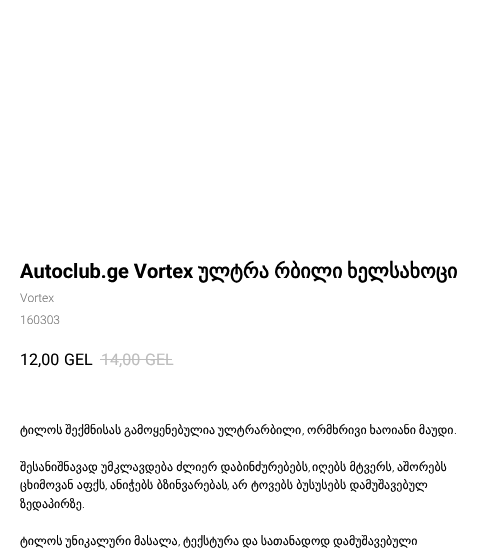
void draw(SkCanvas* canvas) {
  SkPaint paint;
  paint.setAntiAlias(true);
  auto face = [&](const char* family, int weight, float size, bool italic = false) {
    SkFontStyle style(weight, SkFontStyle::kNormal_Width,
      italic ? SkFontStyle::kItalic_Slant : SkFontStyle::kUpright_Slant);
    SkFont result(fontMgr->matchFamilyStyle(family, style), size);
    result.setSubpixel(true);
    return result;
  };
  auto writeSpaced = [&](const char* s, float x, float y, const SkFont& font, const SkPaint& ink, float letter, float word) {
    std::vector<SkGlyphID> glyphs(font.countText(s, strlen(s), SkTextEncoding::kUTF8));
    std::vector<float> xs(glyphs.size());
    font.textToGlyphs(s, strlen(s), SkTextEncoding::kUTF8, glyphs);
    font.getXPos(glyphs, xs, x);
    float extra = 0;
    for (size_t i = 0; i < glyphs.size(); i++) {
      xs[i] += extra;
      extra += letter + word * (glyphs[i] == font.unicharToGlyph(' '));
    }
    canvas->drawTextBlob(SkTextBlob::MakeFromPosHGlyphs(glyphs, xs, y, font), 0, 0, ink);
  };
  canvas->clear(0xffffffff);
  paint.setColor(0xffbdbdbd);
  canvas->drawRect(SkRect::MakeXYWH(100, 359, 72, 1), paint);
  auto f0 = face("Roboto", 700, 20);
  paint.setColor(0xff000000);
  canvas->drawString("Autoclub.ge Vortex", 20, 278, f0, paint);
  auto f1 = face("DejaVu Sans", 700, 20);
  {
    const struct { const char* s; float x, y; } items[] = {
      {"ულტრა", 198, 278},
      {"რბილი", 274, 278},
      {"ხელსახოცი", 347, 278},
    };
    for (auto [s, x, y] : items) {
      canvas->drawString(s, x, y, f1, paint);
    }
  }
  auto f2 = face("Roboto", 300, 12);
  paint.setColor(0xff777777);
  canvas->drawString("Vortex", 20, 302, f2, paint);
  canvas->drawString("160303", 20, 324, f2, paint);
  auto f3 = face("Roboto", 400, 16);
  paint.setColor(0xff000000);
  canvas->drawString("12,00", 20, 365, f3, paint);
  canvas->drawString("GEL", 64, 365, f3, paint);
  paint.setColor(0xffbdbdbd);
  canvas->drawString("14,00", 101, 365, f3, paint);
  canvas->drawString("GEL", 145, 365, f3, paint);
  auto f4 = face("DejaVu Sans", 400, 12);
  paint.setColor(0xff000000);
  writeSpaced("ტილოს შექმნისას გამოყენებულია ულტრარბილი", 20, 434, f4, paint, 0, -1);
  canvas->drawString(",", 302, 434, f2, paint);
  writeSpaced("ორმხრივი ხაოიანი მაუდი", 307, 434, f4, paint, 0, -1);
  canvas->drawString(".", 454, 434, f2, paint);
  writeSpaced("შესანიშნავად უმკლავდება ძლიერ დაბინძურებებს", 20, 471, f4, paint, 0, -0.5f);
  canvas->drawString(",", 308, 471, f2, paint);
  writeSpaced("იღებს მტვერს", 312, 471, f4, paint, 0, -0.5f);
  canvas->drawString(",", 392, 471, f2, paint);
  canvas->drawString("აშორებს", 397, 471, f4, paint);
  writeSpaced("ცხიმოვან აფქს", 20, 489, f4, paint, 0, -0.5f);
  canvas->drawString(",", 105, 489, f2, paint);
  writeSpaced("ანიჭებს ბზინვარებას", 110, 489, f4, paint, 0, -0.5f);
  canvas->drawString(",", 227, 489, f2, paint);
  writeSpaced("არ ტოვებს ბუსუსებს დამუშავებულ", 232, 489, f4, paint, 0, -0.5f);
  canvas->drawString("ზედაპირზე", 20, 508, f4, paint);
  canvas->drawString(".", 82, 508, f2, paint);
  writeSpaced("ტილოს უნიკალური მასალა", 20, 545, f4, paint, 0, -1);
  canvas->drawString(",", 178, 545, f2, paint);
  writeSpaced("ტექსტურა და სათანადოდ დამუშავებული", 183, 545, f4, paint, 0, -1);
}
